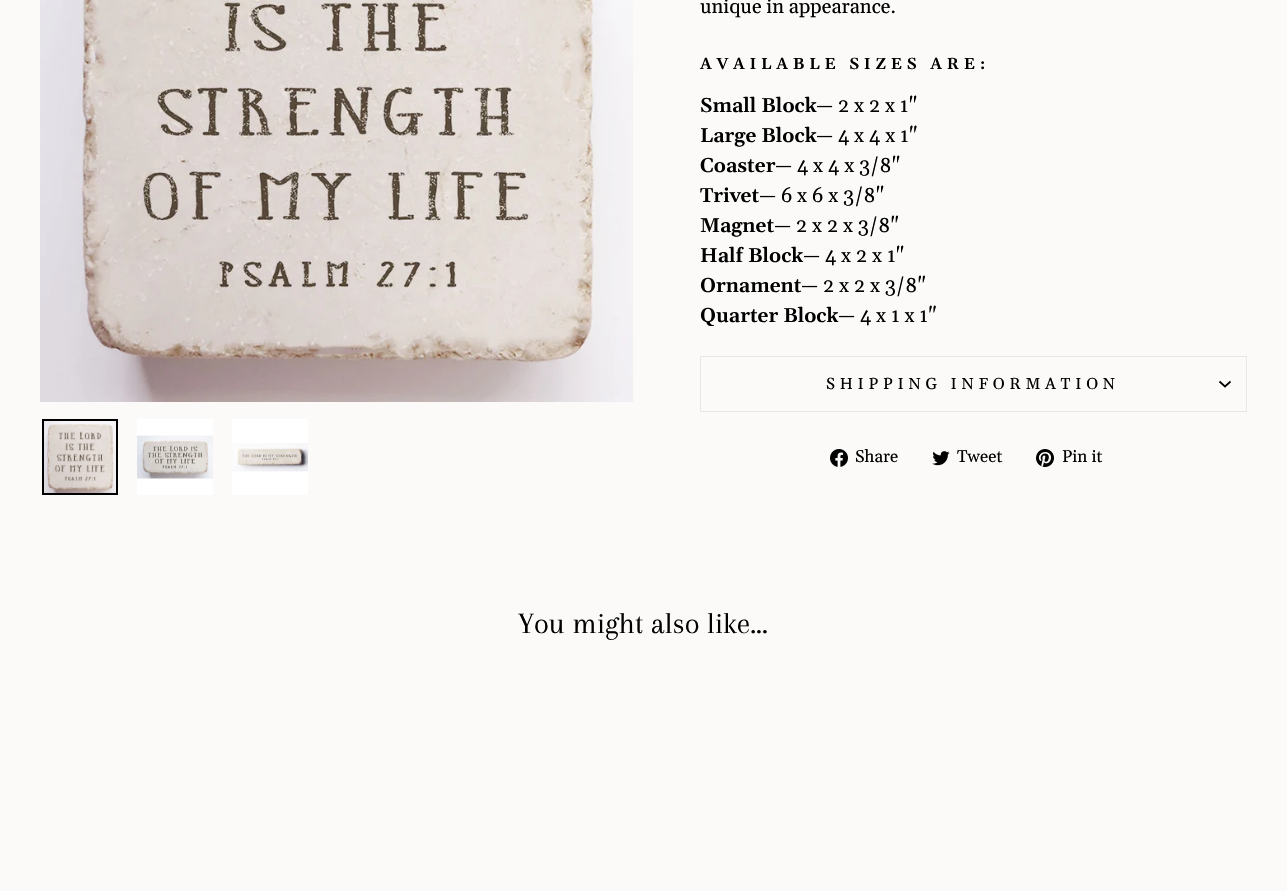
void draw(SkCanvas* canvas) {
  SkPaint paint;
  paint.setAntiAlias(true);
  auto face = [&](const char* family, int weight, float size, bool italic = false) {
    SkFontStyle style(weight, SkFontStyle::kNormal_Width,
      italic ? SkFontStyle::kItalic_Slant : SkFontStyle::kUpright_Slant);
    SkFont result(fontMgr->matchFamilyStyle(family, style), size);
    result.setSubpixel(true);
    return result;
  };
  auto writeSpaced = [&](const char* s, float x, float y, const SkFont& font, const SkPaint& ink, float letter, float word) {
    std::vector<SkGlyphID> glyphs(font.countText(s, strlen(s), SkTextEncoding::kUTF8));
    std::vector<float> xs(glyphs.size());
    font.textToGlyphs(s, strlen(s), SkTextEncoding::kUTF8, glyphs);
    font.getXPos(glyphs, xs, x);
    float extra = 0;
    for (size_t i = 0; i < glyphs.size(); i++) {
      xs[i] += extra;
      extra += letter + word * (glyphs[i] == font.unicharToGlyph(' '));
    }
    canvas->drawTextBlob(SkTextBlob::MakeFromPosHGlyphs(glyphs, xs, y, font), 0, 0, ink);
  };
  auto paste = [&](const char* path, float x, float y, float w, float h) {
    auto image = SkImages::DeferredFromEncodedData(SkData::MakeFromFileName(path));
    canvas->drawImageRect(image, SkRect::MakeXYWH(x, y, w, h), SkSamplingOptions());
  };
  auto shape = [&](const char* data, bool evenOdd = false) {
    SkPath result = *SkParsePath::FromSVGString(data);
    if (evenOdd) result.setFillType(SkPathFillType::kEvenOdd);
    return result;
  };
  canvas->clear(0xfffbfaf9);
  paste("img/1.png", 40, 0, 593, 402);
  paste("img/2.png", 44, 421, 72, 72);
  paint.setStroke(true);
  paint.setStrokeWidth(2);
  paint.setColor(0xff000000);
  canvas->drawRect(SkRect::MakeXYWH(43, 420, 74, 74), paint);
  paint.setStroke(false);
  paint.setColor(0xffffffff);
  canvas->drawRect(SkRect::MakeXYWH(137, 419, 76, 76), paint);
  paste("img/3.png", 137, 435, 76, 44);
  canvas->drawRect(SkRect::MakeXYWH(232, 419, 76, 76), paint);
  paste("img/4.png", 232, 443, 76, 29);
  {
    const struct { float x, y, w, h; SkColor color; } items[] = {
      {700, 411, 547, 1, 0xffe8e8e1},
      {700, 356, 547, 1, 0xffe8e8e1},
      {1246, 356, 1, 55, 0xffe8e8e1},
      {700, 356, 1, 55, 0xffe8e8e1},
    };
    for (auto [x, y, w, h, color] : items) {
      paint.setColor(color);
      canvas->drawRect(SkRect::MakeXYWH(x, y, w, h), paint);
    }
  }
  paint.setStroke(true);
  paint.setStrokeWidth(1.7f);
  paint.setColor(0xff000000);
  canvas->drawPath(shape("M1219.5 381.5L1225 386.5L1230.5 381.5"), paint);
  paste("img/5.png", 830, 449, 18, 18);
  paste("img/6.png", 932, 451, 18, 15);
  paste("img/7.png", 1036, 449, 18, 18);
  auto f0 = face("Gelasio", 400, 20);
  paint.setStroke(false);
  canvas->drawString("unique in appearance.", 700, 13, f0, paint);
  auto f1 = face("Gelasio", 600, 16);
  writeSpaced("AVAILABLE SIZES ARE:", 700, 69, f1, paint, 4.75f, 0);
  auto f2 = face("Gelasio", 600, 20);
  canvas->drawString("Small Block", 700, 112, f2, paint);
  canvas->drawString("— 2 x 2 x 1\"", 816, 112, f0, paint);
  canvas->drawString("Large Block", 700, 142, f2, paint);
  canvas->drawString("— 4 x 4 x 1\"", 816, 142, f0, paint);
  canvas->drawString("Coaster", 700, 172, f2, paint);
  canvas->drawString("— 4 x 4 x 3/8\"", 775, 172, f0, paint);
  canvas->drawString("Trivet", 700, 202, f2, paint);
  canvas->drawString("— 6 x 6 x 3/8\"", 759, 202, f0, paint);
  canvas->drawString("Magnet", 700, 232, f2, paint);
  canvas->drawString("— 2 x 2 x 3/8\"", 774, 232, f0, paint);
  canvas->drawString("Half Block", 700, 262, f2, paint);
  canvas->drawString("— 4 x 2 x 1\"", 803, 262, f0, paint);
  canvas->drawString("Ornament", 700, 292, f2, paint);
  canvas->drawString("— 2 x 2 x 3/8\"", 801, 292, f0, paint);
  canvas->drawString("Quarter Block", 700, 322, f2, paint);
  canvas->drawString("— 4 x 1 x 1\"", 838, 322, f0, paint);
  auto f3 = face("Gelasio", 400, 16);
  writeSpaced("SHIPPING INFORMATION", 826, 389, f3, paint, 4.75f, 0);
  auto f4 = face("Gelasio", 400, 17);
  {
    const struct { const char* s; float x, y; } items[] = {
      {"Share", 855, 462},
      {"Tweet", 957, 462},
      {"Pin it", 1062, 462},
    };
    for (auto [s, x, y] : items) {
      canvas->drawString(s, x, y, f4, paint);
    }
  }
  auto f5 = face("Arapey", 400, 30.5f);
  canvas->drawString("You might also like...", 518, 633, f5, paint);
}
